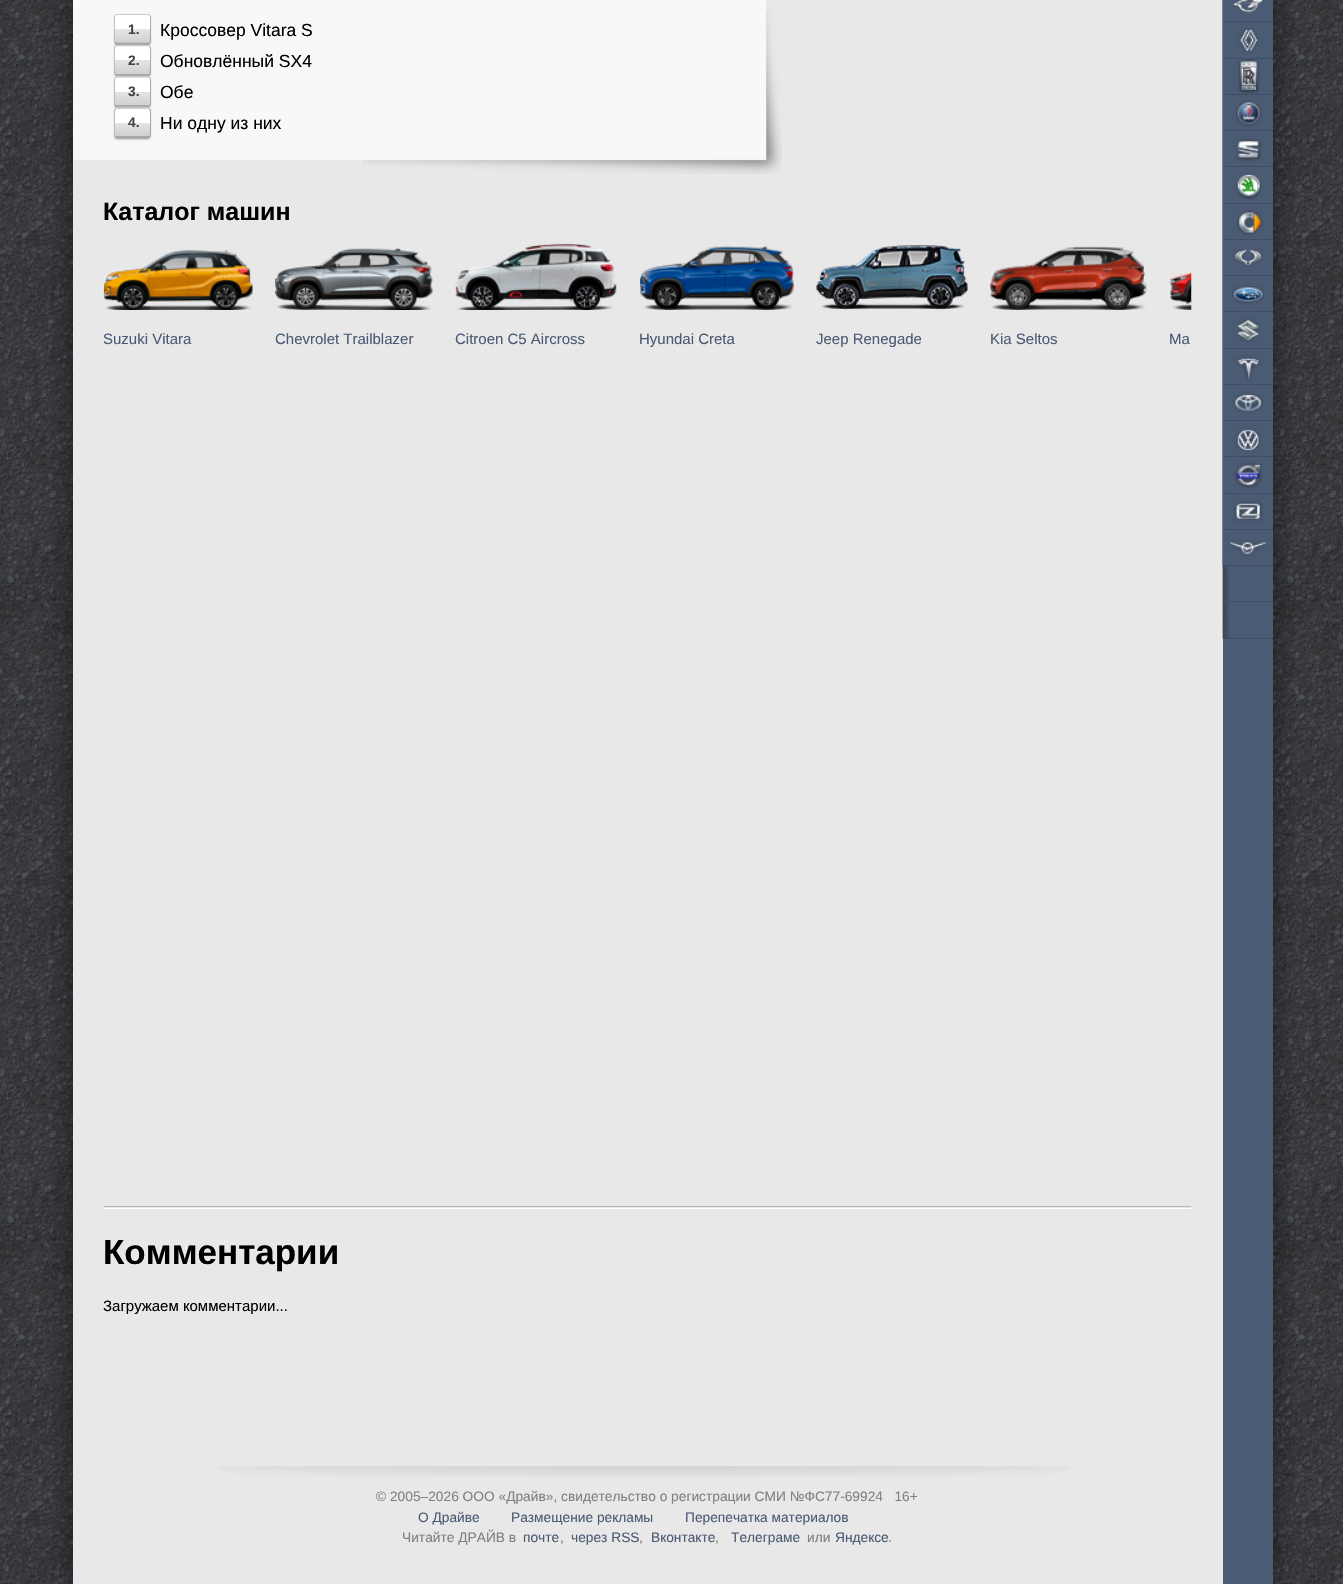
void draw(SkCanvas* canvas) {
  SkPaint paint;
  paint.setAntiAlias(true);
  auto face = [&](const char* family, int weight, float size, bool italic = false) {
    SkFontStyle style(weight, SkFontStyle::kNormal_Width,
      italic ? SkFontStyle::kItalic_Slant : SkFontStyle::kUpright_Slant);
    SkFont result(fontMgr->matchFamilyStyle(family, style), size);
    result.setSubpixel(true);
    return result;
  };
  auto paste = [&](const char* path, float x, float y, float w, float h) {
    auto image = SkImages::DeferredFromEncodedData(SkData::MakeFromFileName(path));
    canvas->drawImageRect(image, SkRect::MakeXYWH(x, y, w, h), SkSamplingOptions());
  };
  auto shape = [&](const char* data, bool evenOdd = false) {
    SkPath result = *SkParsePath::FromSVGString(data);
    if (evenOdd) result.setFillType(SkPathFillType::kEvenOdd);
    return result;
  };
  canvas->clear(0xffffffff);
  paste("img/1.png", 0, 0, 1343, 1584);
  paste("img/2.png", 51, 0, 1244, 1555);
  paste("img/34.png", 54, 1555, 1239, 29);
  paint.setColor(0xffe8e8e8);
  canvas->drawRect(SkRect::MakeXYWH(73, 0, 1150, 1584), paint);
  paint.setColor(0xfff8f8f8);
  canvas->drawRect(SkRect::MakeXYWH(73, 0, 693, 160), paint);
  paint.setColor(0x26000000);
  paint.setMaskFilter(SkMaskFilter::MakeBlur(kNormal_SkBlurStyle, 1));
  canvas->drawRoundRect(SkRect::MakeXYWH(114, 15, 37, 31), 4, 4, paint);
  paint.setMaskFilter(nullptr);
  paste("img/3.png", 115, 15, 35, 28);
  paint.setColor(0xffcccccc);
  canvas->drawPath(shape("M117.5 14C116.5 14 115.5 14.5 115 15L115.5 15.5C116 15 117 15 117.5 15H147.5C148 15 149 15 149.5 15.5L150 15C149.5 14.5 148.5 14 147.5 14Z"), paint);
  paint.setColor(0xffaaaaaa);
  canvas->drawPath(shape("M150.5 43.5C151.5 41.5 151 38.5 151 37V17L150 15L149.5 15.5L150 17C150.5 19 150 41.5 149.5 42Z"), paint);
  canvas->drawPath(shape("M117.5 45H147.5C149 45 150 44.5 150.5 43.5L149.5 42C149.5 42.5 148.5 42.5 147.5 42.5H117.5C116.5 42.5 115.5 42.5 115.5 42L114.5 43.5C115 44.5 116 45 117.5 45Z"), paint);
  paint.setColor(0xffbbbbbb);
  canvas->drawPath(shape("M115 15L114 17V37C114 38.5 113.5 41.5 114.5 43.5L115.5 42C115 41.5 114.5 19 115 17L115.5 15.5Z"), paint);
  paint.setColor(0x26000000);
  paint.setMaskFilter(SkMaskFilter::MakeBlur(kNormal_SkBlurStyle, 1));
  canvas->drawRoundRect(SkRect::MakeXYWH(114, 46, 37, 32), 4, 4, paint);
  paint.setMaskFilter(nullptr);
  paste("img/4.png", 115, 46, 35, 28);
  paint.setColor(0xffcccccc);
  canvas->drawPath(shape("M117.5 45C116.5 45 115.5 45.5 115 46L115.5 47C116 46.5 117 46 117.5 46H147.5C148 46 149 46.5 149.5 47L150 46C149.5 45.5 148.5 45 147.5 45Z"), paint);
  paint.setColor(0xffaaaaaa);
  canvas->drawPath(shape("M150 46C150.5 47 151 48 151 49V72.5C151 73.5 151 74 150.5 74.5L149.5 73C150 72.5 150.5 50.5 150 48.5L149.5 47Z"), paint);
  canvas->drawPath(shape("M150.5 74.5C150 75.5 148.5 76 147.5 76H117.5C116.5 76 115 75.5 114.5 74.5L115.5 73C115.5 73.5 116.5 74 117.5 74H147.5C148.5 74 149.5 73.5 149.5 73Z"), paint);
  paint.setColor(0xffbbbbbb);
  canvas->drawPath(shape("M115 46C114.5 47 114 48 114 49V72.5C114 73.5 114 74 114.5 74.5L115.5 73C115 72.5 114.5 50.5 115 48.5L115.5 47Z"), paint);
  paint.setColor(0x26000000);
  paint.setMaskFilter(SkMaskFilter::MakeBlur(kNormal_SkBlurStyle, 1));
  canvas->drawRoundRect(SkRect::MakeXYWH(114, 78, 37, 31), 4, 4, paint);
  paint.setMaskFilter(nullptr);
  paste("img/5.png", 115, 77, 35, 28);
  paint.setColor(0xffcccccc);
  canvas->drawPath(shape("M117.5 77.5L115.5 78L115 77.5L116.5 76H148.5L150 77.5L149.5 78L147.5 77.5Z"), paint);
  paint.setColor(0xffaaaaaa);
  canvas->drawPath(shape("M150 77.5C150.5 78 151 79 151 80V104L150.5 106L149.5 104.5L150 104V80C150 79 150 78.5 149.5 78Z"), paint);
  canvas->drawPath(shape("M117.5 107.5H147.5C149 107.5 150 107 150.5 106L149.5 104.5C149.5 105 148.5 105 147.5 105H117.5C116.5 105 115.5 105 115.5 104.5L114.5 106C115 107 116 107.5 117.5 107.5Z"), paint);
  paint.setColor(0xffbbbbbb);
  canvas->drawPath(shape("M114.5 106L114 104V80C114 79 114.5 78 115 77.5L115.5 78C115 78.5 115 79 115 80V104L115.5 104.5Z"), paint);
  paint.setColor(0x26000000);
  paint.setMaskFilter(SkMaskFilter::MakeBlur(kNormal_SkBlurStyle, 1));
  canvas->drawRoundRect(SkRect::MakeXYWH(114, 109, 37, 31), 4, 4, paint);
  paint.setMaskFilter(nullptr);
  paste("img/6.png", 115, 109, 35, 27);
  paint.setColor(0xffcccccc);
  canvas->drawPath(shape("M117.5 107.5C116.5 107.5 115.5 108 115 108.5L116 109.5C116 109 117 109 117.5 109H147.5C148 109 149 109 149 109.5L150 108.5C149.5 108 148.5 107.5 147.5 107.5Z"), paint);
  paint.setColor(0xffaaaaaa);
  canvas->drawPath(shape("M150 108.5C150.5 109 151 110 151 111V135L150.5 137L149.5 135.5L150 135V111C150 110.5 149.5 110 149 109.5Z"), paint);
  canvas->drawPath(shape("M116.5 139L114.5 137L115.5 135.5C116 136 116.5 136 117.5 136H147.5C148.5 136 149 136 149.5 135.5L150.5 137L148.5 139Z"), paint);
  paint.setColor(0xffbbbbbb);
  canvas->drawPath(shape("M115 108.5C114.5 109 114 110 114 111V135L114.5 137L115.5 135.5L115 135V111C115 110.5 115.5 110 116 109.5Z"), paint);
  paste("img/7.png", 362, 11, 420, 163);
  paste("img/8.png", 103, 250, 150, 60);
  paste("img/9.png", 275, 248, 158, 62);
  paste("img/10.png", 455, 243, 162, 67);
  paste("img/11.png", 640, 246, 154, 64);
  paste("img/12.png", 816, 245, 152, 65);
  paste("img/13.png", 990, 246, 157, 64);
  paste("img/14.png", 1170, 272, 22, 38);
  {
    const struct { float x, y, w, h; SkColor color; } items[] = {
      {104, 1206, 1087, 1, 0xffb5b5b5},
      {104, 1208, 1087, 1, 0xffffffff},
      {1223, 0, 50, 1584, 0xff4a5b74},
    };
    for (auto [x, y, w, h, color] : items) {
      paint.setColor(color);
      canvas->drawRect(SkRect::MakeXYWH(x, y, w, h), paint);
    }
  }
  paste("img/15.png", 1222, 0, 8, 639);
  paste("img/16.png", 1222, 0, 42, 22);
  paste("img/17.png", 1222, 21, 37, 37);
  paint.setColor(0xff404d62);
  canvas->drawRect(SkRect::MakeXYWH(1223, 21, 50, 1), paint);
  paste("img/18.png", 1222, 57, 38, 37);
  canvas->drawRect(SkRect::MakeXYWH(1223, 58, 50, 1), paint);
  paste("img/19.png", 1222, 93, 41, 37);
  canvas->drawRect(SkRect::MakeXYWH(1223, 94, 50, 1), paint);
  paste("img/20.png", 1222, 130, 40, 37);
  canvas->drawRect(SkRect::MakeXYWH(1223, 130, 50, 1), paint);
  paste("img/21.png", 1222, 166, 40, 37);
  canvas->drawRect(SkRect::MakeXYWH(1223, 166, 50, 1), paint);
  paste("img/22.png", 1222, 202, 42, 37);
  canvas->drawRect(SkRect::MakeXYWH(1223, 203, 50, 1), paint);
  paste("img/23.png", 1222, 238, 41, 37);
  canvas->drawRect(SkRect::MakeXYWH(1223, 239, 50, 1), paint);
  paste("img/24.png", 1222, 275, 43, 37);
  canvas->drawRect(SkRect::MakeXYWH(1223, 275, 50, 1), paint);
  paste("img/25.png", 1222, 311, 38, 37);
  canvas->drawRect(SkRect::MakeXYWH(1223, 311, 50, 1), paint);
  paste("img/26.png", 1222, 347, 39, 37);
  canvas->drawRect(SkRect::MakeXYWH(1223, 348, 50, 1), paint);
  paste("img/27.png", 1222, 383, 42, 37);
  canvas->drawRect(SkRect::MakeXYWH(1223, 384, 50, 1), paint);
  paste("img/28.png", 1222, 420, 39, 37);
  canvas->drawRect(SkRect::MakeXYWH(1223, 420, 50, 1), paint);
  paste("img/29.png", 1222, 456, 41, 37);
  canvas->drawRect(SkRect::MakeXYWH(1223, 456, 50, 1), paint);
  paste("img/30.png", 1222, 492, 41, 37);
  canvas->drawRect(SkRect::MakeXYWH(1223, 493, 50, 1), paint);
  paste("img/31.png", 1222, 528, 45, 37);
  canvas->drawRect(SkRect::MakeXYWH(1223, 529, 50, 1), paint);
  paste("img/32.png", 1222, 565, 8, 2);
  {
    const struct { float x, y, w, h; SkColor color; } items[] = {
      {1223, 565, 50, 1, 0xff404d62},
      {1223, 601, 50, 1, 0xff404d62},
      {1223, 638, 50, 1, 0xff404d62},
    };
    for (auto [x, y, w, h, color] : items) {
      paint.setColor(color);
      canvas->drawRect(SkRect::MakeXYWH(x, y, w, h), paint);
    }
  }
  paste("img/33.png", 219, 1466, 850, 11);
  auto f0 = face("Liberation Sans", 700, 13.75f);
  paint.setColor(0xff444444);
  canvas->drawString("1.", 128, 34, f0, paint);
  auto f1 = face("Liberation Sans", 400, 17.5f);
  paint.setColor(0xff000000);
  canvas->drawString("Кроссовер Vitara S", 160, 36, f1, paint);
  paint.setColor(0xff444444);
  canvas->drawString("2.", 128, 65, f0, paint);
  paint.setColor(0xff000000);
  canvas->drawString("Обновлённый SX4", 160, 67, f1, paint);
  paint.setColor(0xff444444);
  canvas->drawString("3.", 128, 96, f0, paint);
  paint.setColor(0xff000000);
  canvas->drawString("Обе", 160, 98, f1, paint);
  paint.setColor(0xff444444);
  canvas->drawString("4.", 128, 127, f0, paint);
  paint.setColor(0xff000000);
  canvas->drawString("Ни одну из них", 160, 129, f1, paint);
  auto f2 = face("Liberation Sans", 700, 25);
  canvas->drawString("Каталог машин", 103, 220, f2, paint);
  auto f3 = face("Liberation Sans", 400, 15);
  paint.setColor(0xff4b5b73);
  {
    const struct { const char* s; float x, y; } items[] = {
      {"Suzuki Vitara", 103, 344},
      {"Chevrolet Trailblazer", 275, 344},
      {"Citroen C5 Aircross", 455, 344},
      {"Hyundai Creta", 639, 344},
      {"Jeep Renegade", 816, 344},
      {"Kia Seltos", 990, 344},
      {"Ma", 1169, 344},
    };
    for (auto [s, x, y] : items) {
      canvas->drawString(s, x, y, f3, paint);
    }
  }
  auto f4 = face("Liberation Sans", 700, 35);
  paint.setColor(0xff000000);
  canvas->drawString("Комментарии", 103, 1264, f4, paint);
  canvas->drawString("Загружаем комментарии...", 103, 1311, f3, paint);
  auto f5 = face("Liberation Sans", 400, 13.75f);
  paint.setColor(0xff808080);
  canvas->drawString("© 2005–2026 ООО «Драйв», свидетельство о регистрации СМИ №ФС77-69924   16+", 376, 1501, f5, paint);
  paint.setColor(0xff4b5b73);
  {
    const struct { const char* s; float x, y; } items[] = {
      {"О Драйве", 418, 1522},
      {"Размещение рекламы", 511, 1522},
      {"Перепечатка материалов", 685, 1522},
    };
    for (auto [s, x, y] : items) {
      canvas->drawString(s, x, y, f5, paint);
    }
  }
  paint.setColor(0xff808080);
  canvas->drawString("Читайте ДРАЙВ в", 402, 1542, f5, paint);
  paint.setColor(0xff4b5b73);
  canvas->drawString("почте", 523, 1542, f5, paint);
  paint.setColor(0xff808080);
  canvas->drawString(",", 560, 1542, f5, paint);
  paint.setColor(0xff4b5b73);
  canvas->drawString("через RSS", 571, 1542, f5, paint);
  paint.setColor(0xff808080);
  canvas->drawString(",", 639, 1542, f5, paint);
  paint.setColor(0xff4b5b73);
  canvas->drawString("Вконтакте", 651, 1542, f5, paint);
  paint.setColor(0xff808080);
  canvas->drawString(",", 715, 1542, f5, paint);
  paint.setColor(0xff4b5b73);
  canvas->drawString("Телеграме", 731, 1542, f5, paint);
  paint.setColor(0xff808080);
  canvas->drawString("или", 807, 1542, f5, paint);
  paint.setColor(0xff4b5b73);
  canvas->drawString("Яндексе", 835, 1542, f5, paint);
  paint.setColor(0xff808080);
  canvas->drawString(".", 888, 1542, f5, paint);
}
